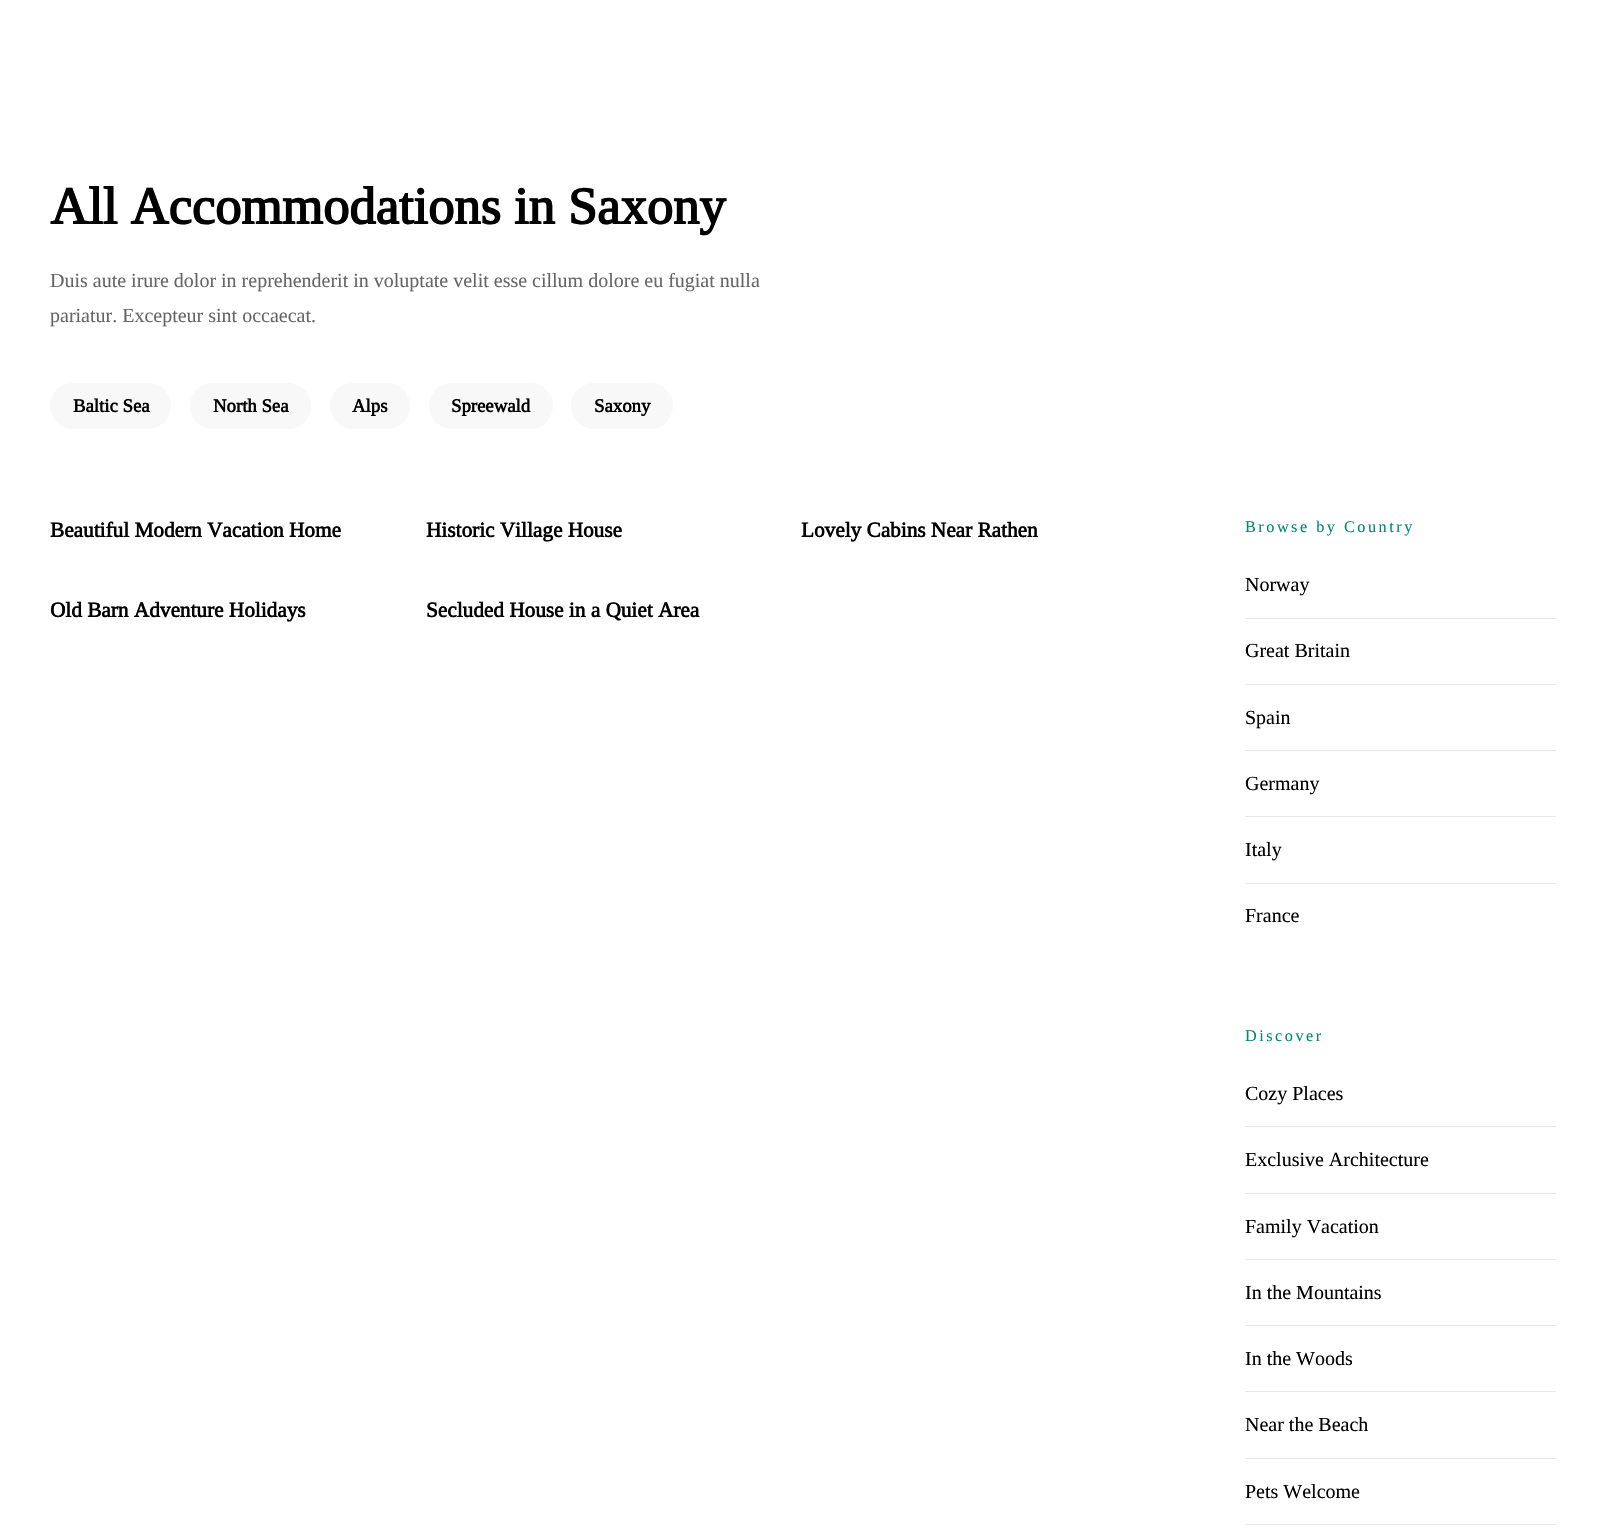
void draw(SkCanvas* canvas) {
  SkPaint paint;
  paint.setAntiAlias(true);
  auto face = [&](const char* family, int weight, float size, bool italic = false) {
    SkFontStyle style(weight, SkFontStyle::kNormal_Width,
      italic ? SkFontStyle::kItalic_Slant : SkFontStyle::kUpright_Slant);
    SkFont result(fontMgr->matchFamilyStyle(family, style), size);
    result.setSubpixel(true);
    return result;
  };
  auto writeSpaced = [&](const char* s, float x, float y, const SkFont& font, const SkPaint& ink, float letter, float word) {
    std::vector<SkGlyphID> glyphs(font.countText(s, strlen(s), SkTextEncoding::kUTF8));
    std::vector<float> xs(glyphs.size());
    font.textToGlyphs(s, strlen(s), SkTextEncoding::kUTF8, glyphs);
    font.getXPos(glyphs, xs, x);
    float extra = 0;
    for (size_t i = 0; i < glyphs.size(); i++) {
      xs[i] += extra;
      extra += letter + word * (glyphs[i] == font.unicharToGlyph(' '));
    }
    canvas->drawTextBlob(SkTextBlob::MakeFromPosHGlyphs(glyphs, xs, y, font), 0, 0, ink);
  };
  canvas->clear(0xffffffff);
  paint.setColor(0xfff8f8f8);
  canvas->drawRoundRect(SkRect::MakeXYWH(50, 383, 121, 46), 23, 23, paint);
  canvas->drawRoundRect(SkRect::MakeXYWH(190, 383, 121, 46), 23, 23, paint);
  canvas->drawRoundRect(SkRect::MakeXYWH(330, 383, 80, 46), 23, 23, paint);
  canvas->drawRoundRect(SkRect::MakeXYWH(429, 383, 124, 46), 23, 23, paint);
  canvas->drawRoundRect(SkRect::MakeXYWH(571, 383, 102, 46), 23, 23, paint);
  {
    const struct { float x, y, w, h; SkColor color; } items[] = {
      {1245, 618, 311, 1, 0xffe8e8e8},
      {1245, 684, 311, 1, 0xffe8e8e8},
      {1245, 750, 311, 1, 0xffe8e8e8},
      {1245, 816, 311, 1, 0xffe8e8e8},
      {1245, 883, 311, 1, 0xffe8e8e8},
      {1245, 1126, 311, 1, 0xffe8e8e8},
      {1245, 1193, 311, 1, 0xffe8e8e8},
      {1245, 1259, 311, 1, 0xffe8e8e8},
      {1245, 1325, 311, 1, 0xffe8e8e8},
      {1245, 1391, 311, 1, 0xffe8e8e8},
      {1245, 1458, 311, 1, 0xffe8e8e8},
      {1245, 1524, 311, 1, 0xffe8e8e8},
    };
    for (auto [x, y, w, h, color] : items) {
      paint.setColor(color);
      canvas->drawRect(SkRect::MakeXYWH(x, y, w, h), paint);
    }
  }
  auto f0 = face("Tinos", 700, 52.5f);
  paint.setColor(0xff000000);
  canvas->drawString("All Accommodations in Saxony", 50, 224, f0, paint);
  auto f1 = face("Tinos", 400, 20);
  paint.setColor(0xff666666);
  canvas->drawString("Duis aute irure dolor in reprehenderit in voluptate velit esse cillum dolore eu fugiat nulla", 50, 287, f1, paint);
  canvas->drawString("pariatur. Excepteur sint occaecat.", 50, 322, f1, paint);
  auto f2 = face("Tinos", 700, 18.75f);
  paint.setColor(0xff000000);
  {
    const struct { const char* s; float x, y; } items[] = {
      {"Baltic Sea", 73, 412},
      {"North Sea", 213, 412},
      {"Alps", 352, 412},
      {"Spreewald", 451, 412},
      {"Saxony", 594, 412},
    };
    for (auto [s, x, y] : items) {
      canvas->drawString(s, x, y, f2, paint);
    }
  }
  auto f3 = face("Tinos", 700, 21.25f);
  {
    const struct { const char* s; float x, y; } items[] = {
      {"Beautiful Modern Vacation Home", 50, 537},
      {"Historic Village House", 426, 537},
      {"Lovely Cabins Near Rathen", 801, 537},
      {"Old Barn Adventure Holidays", 50, 617},
      {"Secluded House in a Quiet Area", 426, 617},
    };
    for (auto [s, x, y] : items) {
      canvas->drawString(s, x, y, f3, paint);
    }
  }
  auto f4 = face("Tinos", 400, 16.25f);
  paint.setColor(0xff008776);
  writeSpaced("Browse by Country", 1245, 532, f4, paint, 2.5f, 0);
  paint.setColor(0xff000000);
  {
    const struct { const char* s; float x, y; } items[] = {
      {"Norway", 1245, 591},
      {"Great Britain", 1245, 657},
      {"Spain", 1245, 724},
      {"Germany", 1245, 790},
      {"Italy", 1245, 856},
      {"France", 1245, 922},
    };
    for (auto [s, x, y] : items) {
      canvas->drawString(s, x, y, f1, paint);
    }
  }
  paint.setColor(0xff008776);
  writeSpaced("Discover", 1245, 1041, f4, paint, 2.5f, 0);
  paint.setColor(0xff000000);
  {
    const struct { const char* s; float x, y; } items[] = {
      {"Cozy Places", 1245, 1100},
      {"Exclusive Architecture", 1245, 1166},
      {"Family Vacation", 1245, 1233},
      {"In the Mountains", 1245, 1299},
      {"In the Woods", 1245, 1365},
      {"Near the Beach", 1245, 1431},
      {"Pets Welcome", 1245, 1498},
    };
    for (auto [s, x, y] : items) {
      canvas->drawString(s, x, y, f1, paint);
    }
  }
}
